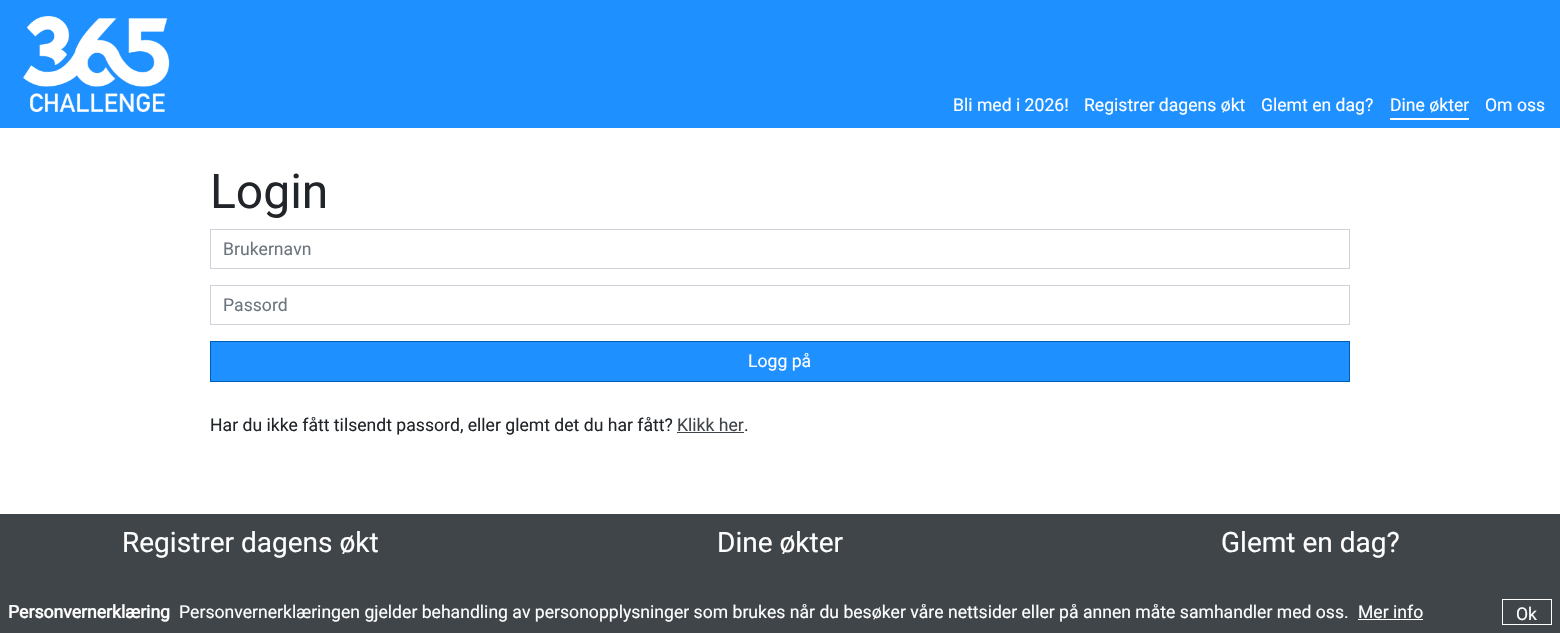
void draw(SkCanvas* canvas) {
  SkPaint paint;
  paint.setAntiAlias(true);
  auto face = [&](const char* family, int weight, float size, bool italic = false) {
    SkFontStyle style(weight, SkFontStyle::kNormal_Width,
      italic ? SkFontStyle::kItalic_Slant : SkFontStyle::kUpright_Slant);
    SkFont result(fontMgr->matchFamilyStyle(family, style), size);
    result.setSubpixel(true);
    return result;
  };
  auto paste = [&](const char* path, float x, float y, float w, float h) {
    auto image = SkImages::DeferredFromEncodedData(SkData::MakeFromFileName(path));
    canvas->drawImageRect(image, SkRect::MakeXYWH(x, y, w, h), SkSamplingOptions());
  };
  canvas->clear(0xffffffff);
  paint.setColor(0xff1e90ff);
  canvas->drawRect(SkRect::MakeXYWH(0, 0, 1560, 128), paint);
  paste("img/1.png", 23, 16, 147, 96);
  paint.setColor(0xffffffff);
  canvas->drawRect(SkRect::MakeXYWH(1390, 118, 79, 2), paint);
  paint.setStroke(true);
  paint.setStrokeWidth(1);
  paint.setColor(0xffced4da);
  canvas->drawRect(SkRect::MakeXYWH(210.5f, 229.5f, 1139, 39), paint);
  canvas->drawRect(SkRect::MakeXYWH(210.5f, 285.5f, 1139, 39), paint);
  paint.setStroke(false);
  paint.setColor(0xff1e90ff);
  canvas->drawRect(SkRect::MakeXYWH(210.5f, 341.5f, 1139, 40), paint);
  paint.setStroke(true);
  paint.setColor(0xff005db7);
  canvas->drawRect(SkRect::MakeXYWH(210.5f, 341.5f, 1139, 40), paint);
  paint.setStroke(false);
  {
    const struct { float x, y, w, h; SkColor color; } items[] = {
      {677, 432, 67, 1, 0xff3f4549},
      {0, 514, 1560, 119, 0xff3f4549},
      {1358, 619, 65, 1, 0xffffffff},
    };
    for (auto [x, y, w, h, color] : items) {
      paint.setColor(color);
      canvas->drawRect(SkRect::MakeXYWH(x, y, w, h), paint);
    }
  }
  paint.setStroke(true);
  canvas->drawRect(SkRect::MakeXYWH(1502.5f, 599.5f, 49, 25), paint);
  auto f0 = face("Roboto", 400, 17.6f);
  paint.setStroke(false);
  {
    const struct { const char* s; float x, y; } items[] = {
      {"Bli med i 2026!", 953, 111},
      {"Registrer dagens økt", 1084, 111},
      {"Glemt en dag?", 1261, 111},
      {"Dine økter", 1390, 111},
      {"Om oss", 1485, 111},
    };
    for (auto [s, x, y] : items) {
      canvas->drawString(s, x, y, f0, paint);
    }
  }
  auto f1 = face("Roboto", 400, 48);
  paint.setColor(0xff212529);
  canvas->drawString("Login", 210, 208, f1, paint);
  paint.setColor(0xff6c757d);
  canvas->drawString("Brukernavn", 223, 255, f0, paint);
  canvas->drawString("Passord", 223, 311, f0, paint);
  paint.setColor(0xffffffff);
  canvas->drawString("Logg på", 748, 367, f0, paint);
  paint.setColor(0xff212529);
  canvas->drawString("Har du ikke fått tilsendt passord, eller glemt det du har fått?", 210, 431, f0, paint);
  paint.setColor(0xff3f4549);
  canvas->drawString("Klikk her", 677, 431, f0, paint);
  paint.setColor(0xff212529);
  canvas->drawString(".", 744, 431, f0, paint);
  auto f2 = face("Roboto", 400, 28);
  paint.setColor(0xffffffff);
  {
    const struct { const char* s; float x, y; } items[] = {
      {"Registrer dagens økt", 122, 552},
      {"Dine økter", 717, 552},
      {"Glemt en dag?", 1221, 552},
    };
    for (auto [s, x, y] : items) {
      canvas->drawString(s, x, y, f2, paint);
    }
  }
  auto f3 = face("Roboto", 700, 17.6f);
  canvas->drawString("Personvernerklæring", 8, 618, f3, paint);
  {
    const struct { const char* s; float x, y; } items[] = {
      {"Personvernerklæringen gjelder behandling av personopplysninger som brukes når du besøker våre nettsider eller på annen måte samhandler med oss.", 179, 618},
      {"Mer info", 1358, 618},
      {"Ok", 1516, 620},
    };
    for (auto [s, x, y] : items) {
      canvas->drawString(s, x, y, f0, paint);
    }
  }
}
